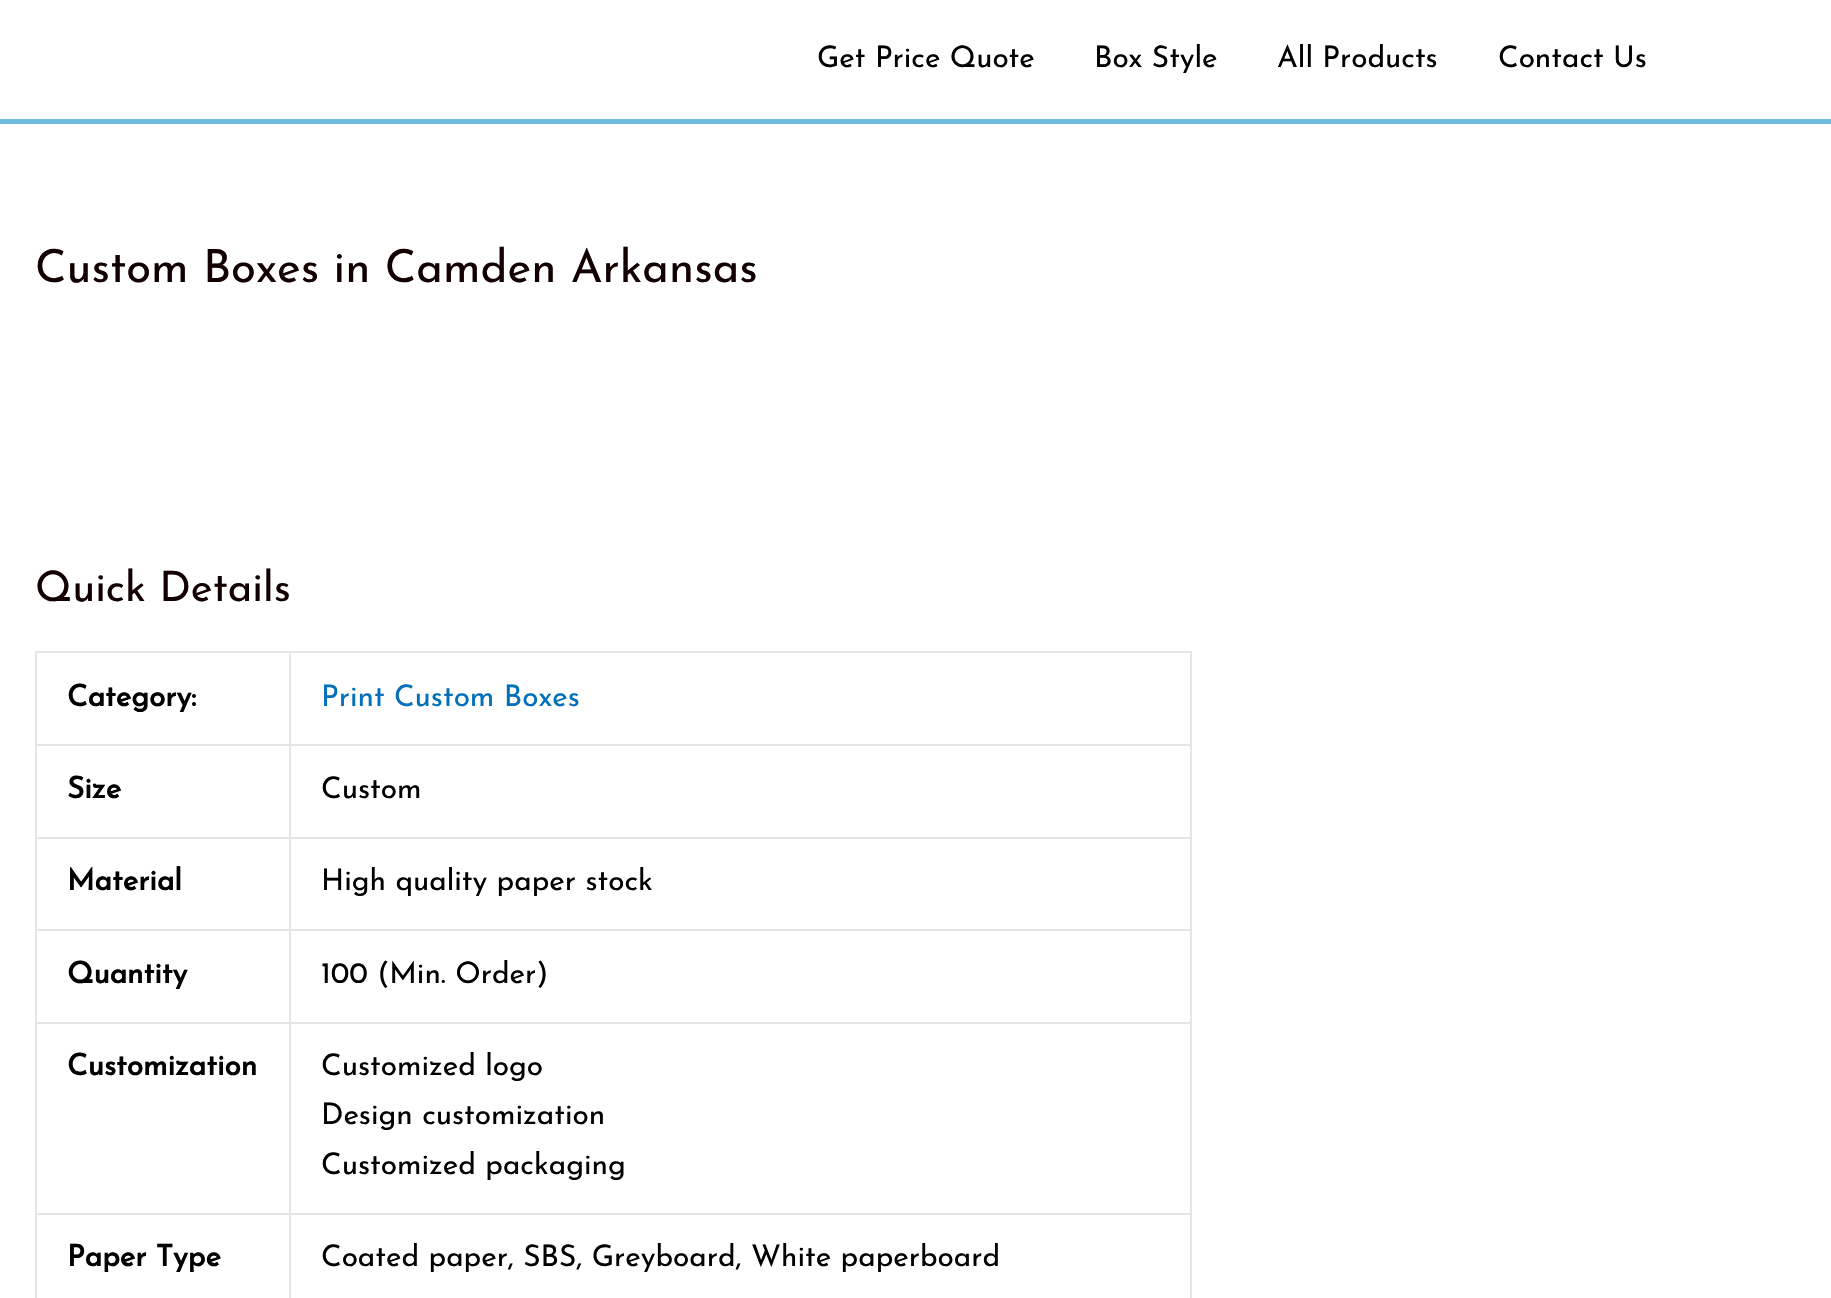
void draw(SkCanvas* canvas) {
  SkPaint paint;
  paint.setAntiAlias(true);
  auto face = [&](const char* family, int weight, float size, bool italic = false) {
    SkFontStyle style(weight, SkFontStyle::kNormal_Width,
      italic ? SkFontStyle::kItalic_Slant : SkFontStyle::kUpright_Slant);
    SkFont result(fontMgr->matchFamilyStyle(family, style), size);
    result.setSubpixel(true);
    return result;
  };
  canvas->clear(0xffffffff);
  {
    const struct { float x, y, w, h; SkColor color; } items[] = {
      {0, 119, 1831, 5, 0xff70bbe1},
      {35, 651, 1157, 2, 0xffe5e5e5},
      {35, 651, 2, 647, 0xffe5e5e5},
      {289, 653, 2, 185, 0xffe5e5e5},
      {37, 744, 254, 2, 0xffe5e5e5},
      {1190, 653, 2, 185, 0xffe5e5e5},
      {291, 744, 901, 2, 0xffe5e5e5},
      {37, 837, 1155, 2, 0xffe5e5e5},
      {289, 838, 2, 460, 0xffe5e5e5},
      {37, 929, 254, 2, 0xffe5e5e5},
      {1190, 838, 2, 460, 0xffe5e5e5},
      {291, 929, 901, 2, 0xffe5e5e5},
      {37, 1022, 1155, 2, 0xffe5e5e5},
      {37, 1213, 1155, 2, 0xffe5e5e5},
    };
    for (auto [x, y, w, h, color] : items) {
      paint.setColor(color);
      canvas->drawRect(SkRect::MakeXYWH(x, y, w, h), paint);
    }
  }
  auto f0 = face("Josefin Sans", 100, 29.75f);
  paint.setColor(0xff000000);
  {
    const struct { const char* s; float x, y; } items[] = {
      {"Get Price Quote", 817, 67},
      {"Box Style", 1094, 67},
      {"All Products", 1277, 67},
      {"Contact Us", 1498, 67},
    };
    for (auto [s, x, y] : items) {
      canvas->drawString(s, x, y, f0, paint);
    }
  }
  auto f1 = face("Josefin Sans", 100, 45.5f);
  paint.setColor(0xff120000);
  canvas->drawString("Custom Boxes in Camden Arkansas", 35, 282, f1, paint);
  auto f2 = face("Josefin Sans", 100, 42);
  canvas->drawString("Quick Details", 35, 601, f2, paint);
  auto f3 = face("Josefin Sans", 700, 29.75f);
  paint.setColor(0xff000000);
  canvas->drawString("Category:", 67, 706, f3, paint);
  paint.setColor(0xff0170b9);
  canvas->drawString("Print Custom Boxes", 321, 706, f0, paint);
  paint.setColor(0xff000000);
  canvas->drawString("Size", 67, 798, f3, paint);
  canvas->drawString("Custom", 321, 798, f0, paint);
  canvas->drawString("Material", 67, 890, f3, paint);
  canvas->drawString("High quality paper stock", 321, 890, f0, paint);
  canvas->drawString("Quantity", 67, 983, f3, paint);
  canvas->drawString("100 (Min. Order)", 321, 983, f0, paint);
  canvas->drawString("Customization", 67, 1075, f3, paint);
  {
    const struct { const char* s; float x, y; } items[] = {
      {"Customized logo", 321, 1075},
      {"Design customization", 321, 1124},
      {"Customized packaging", 321, 1174},
    };
    for (auto [s, x, y] : items) {
      canvas->drawString(s, x, y, f0, paint);
    }
  }
  canvas->drawString("Paper Type", 67, 1266, f3, paint);
  canvas->drawString("Coated paper, SBS, Greyboard, White paperboard", 321, 1266, f0, paint);
}
